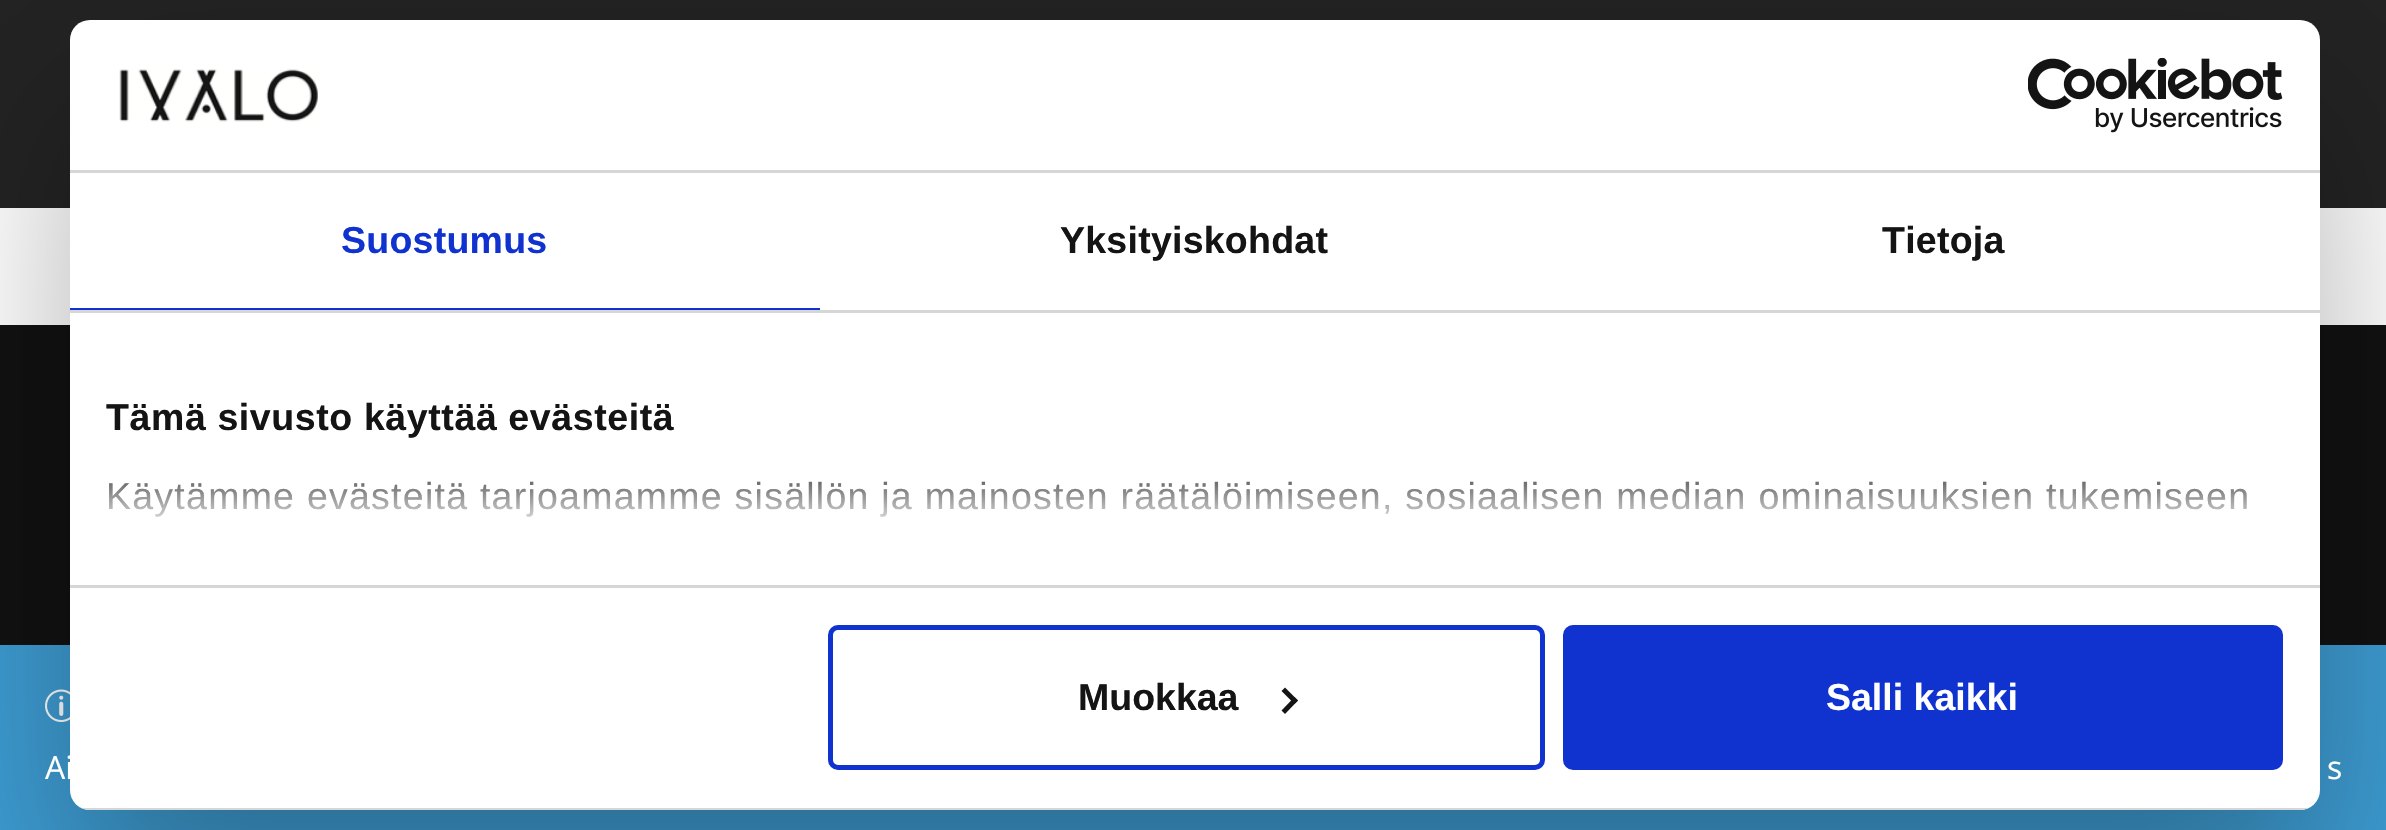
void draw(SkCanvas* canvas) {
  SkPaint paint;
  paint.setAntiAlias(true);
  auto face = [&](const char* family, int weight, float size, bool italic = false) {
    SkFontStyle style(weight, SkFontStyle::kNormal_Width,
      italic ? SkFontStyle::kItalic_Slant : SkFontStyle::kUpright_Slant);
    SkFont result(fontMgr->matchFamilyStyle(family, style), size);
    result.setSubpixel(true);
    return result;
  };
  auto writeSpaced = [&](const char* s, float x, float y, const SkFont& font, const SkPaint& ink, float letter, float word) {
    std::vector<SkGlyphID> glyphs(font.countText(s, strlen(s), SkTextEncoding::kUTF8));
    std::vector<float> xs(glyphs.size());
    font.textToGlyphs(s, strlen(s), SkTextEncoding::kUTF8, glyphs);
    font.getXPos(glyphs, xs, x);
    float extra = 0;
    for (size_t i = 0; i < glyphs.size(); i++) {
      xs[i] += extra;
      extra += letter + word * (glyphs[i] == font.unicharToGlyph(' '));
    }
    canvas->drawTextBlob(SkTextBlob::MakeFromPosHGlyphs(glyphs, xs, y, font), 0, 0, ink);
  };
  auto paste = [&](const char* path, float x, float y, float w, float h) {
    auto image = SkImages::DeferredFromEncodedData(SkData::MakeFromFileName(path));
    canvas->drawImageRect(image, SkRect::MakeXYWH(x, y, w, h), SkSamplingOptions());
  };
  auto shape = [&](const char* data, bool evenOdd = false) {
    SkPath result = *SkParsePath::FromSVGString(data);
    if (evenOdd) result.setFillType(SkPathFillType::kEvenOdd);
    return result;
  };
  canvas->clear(0xffffffff);
  {
    const struct { float x, y, w, h; SkColor color; } items[] = {
      {0, 0, 2386, 208, 0xff232323},
      {0, 325, 2386, 320, 0xff111111},
      {0, 645, 2386, 185, 0xff3d9cd2},
    };
    for (auto [x, y, w, h, color] : items) {
      paint.setColor(color);
      canvas->drawRect(SkRect::MakeXYWH(x, y, w, h), paint);
    }
  }
  paste("img/3.png", 45, 689, 25, 33);
  paint.setColor(0x4d000000);
  paint.setMaskFilter(SkMaskFilter::MakeBlur(kNormal_SkBlurStyle, 85));
  canvas->drawRoundRect(SkRect::MakeXYWH(70, 100, 2250, 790), 20, 20, paint);
  paint.setMaskFilter(nullptr);
  paint.setColor(0xffffffff);
  canvas->drawRoundRect(SkRect::MakeXYWH(70, 20, 2250, 790), 20, 20, paint);
  paint.setColor(0xffd6d6d6);
  canvas->drawRect(SkRect::MakeXYWH(70, 170, 2250, 3), paint);
  paste("img/1.png", 119, 69, 199, 53);
  paste("img/2.png", 2028, 58, 255, 75);
  {
    const struct { float x, y, w, h; SkColor color; } items[] = {
      {70, 310, 2250, 3, 0xffd6d6d6},
      {70, 308, 750, 2, 0xff1032cf},
      {70, 585, 2250, 3, 0xffd6d6d6},
    };
    for (auto [x, y, w, h, color] : items) {
      paint.setColor(color);
      canvas->drawRect(SkRect::MakeXYWH(x, y, w, h), paint);
    }
  }
  canvas->save();
  canvas->clipPath(shape("M90 20H2300C2311 20 2320 29 2320 40V790C2320 801 2311 810 2300 810H90C79 810 70 801 70 790V40C70 29 79 20 90 20Z"), true);
  canvas->drawRect(SkRect::MakeXYWH(81, 808, 2228, 2), paint);
  canvas->restore();
  paint.setStroke(true);
  paint.setStrokeWidth(5);
  paint.setColor(0xff1032cf);
  canvas->drawRoundRect(SkRect::MakeXYWH(830.5f, 627.5f, 712, 140), 7.5f, 7.5f, paint);
  paint.setStroke(false);
  paint.setColor(0xff141414);
  canvas->drawPath(shape("M1285 687.5L1298 700.5L1294.5 704L1281.5 691Z"), paint);
  canvas->drawPath(shape("M1294.5 697L1298 700.5L1285 714L1281.5 710.5Z"), paint);
  paint.setColor(0xff1032cf);
  canvas->drawRoundRect(SkRect::MakeXYWH(1565.5f, 627.5f, 715, 140), 7.5f, 7.5f, paint);
  paint.setStroke(true);
  canvas->drawRoundRect(SkRect::MakeXYWH(1565.5f, 627.5f, 715, 140), 7.5f, 7.5f, paint);
  auto f0 = face("Liberation Sans", 700, 37.5f);
  paint.setStroke(false);
  writeSpaced("Suostumus", 341, 253, f0, paint, 0.25f, 0);
  paint.setColor(0xff141414);
  writeSpaced("Yksityiskohdat", 1060, 253, f0, paint, 0.25f, 0);
  writeSpaced("Tietoja", 1882, 253, f0, paint, 0.25f, 0);
  writeSpaced("Tämä sivusto käyttää evästeitä", 106, 430, f0, paint, 0.6f, 0);
  auto f1 = face("Liberation Sans", 400, 37.5f);
  writeSpaced("Käytämme evästeitä tarjoamamme sisällön ja mainosten räätälöimiseen, sosiaalisen median ominaisuuksien tukemiseen", 106, 509, f1, paint, 1.25f, 0);
  {
    const SkColor colors[] = {0xffffffff, 0xccffffff, 0x00ffffff};
    const float stops[] = {0, 0.5f, 1};
    const SkPoint ends[] = {{1179, 585}, {1179, 450}};
    paint.setShader(SkGradientShader::MakeLinear(ends, colors, stops, 3, SkTileMode::kClamp));
    paint.setAlpha(255);
  }
  canvas->drawRect(SkRect::MakeXYWH(109, 481, 2138, 36), paint);
  paint.setShader(nullptr);
  paint.setColor(0xff141414);
  canvas->drawString("Muokkaa", 1078, 710, f0, paint);
  paint.setColor(0xffffffff);
  canvas->drawString("Salli kaikki", 1826, 710, f0, paint);
  auto f2 = face("Open Sans", 400, 32);
  canvas->drawString("Ai", 45, 779, f2, paint);
  canvas->drawString("s", 2327, 779, f2, paint);
}
